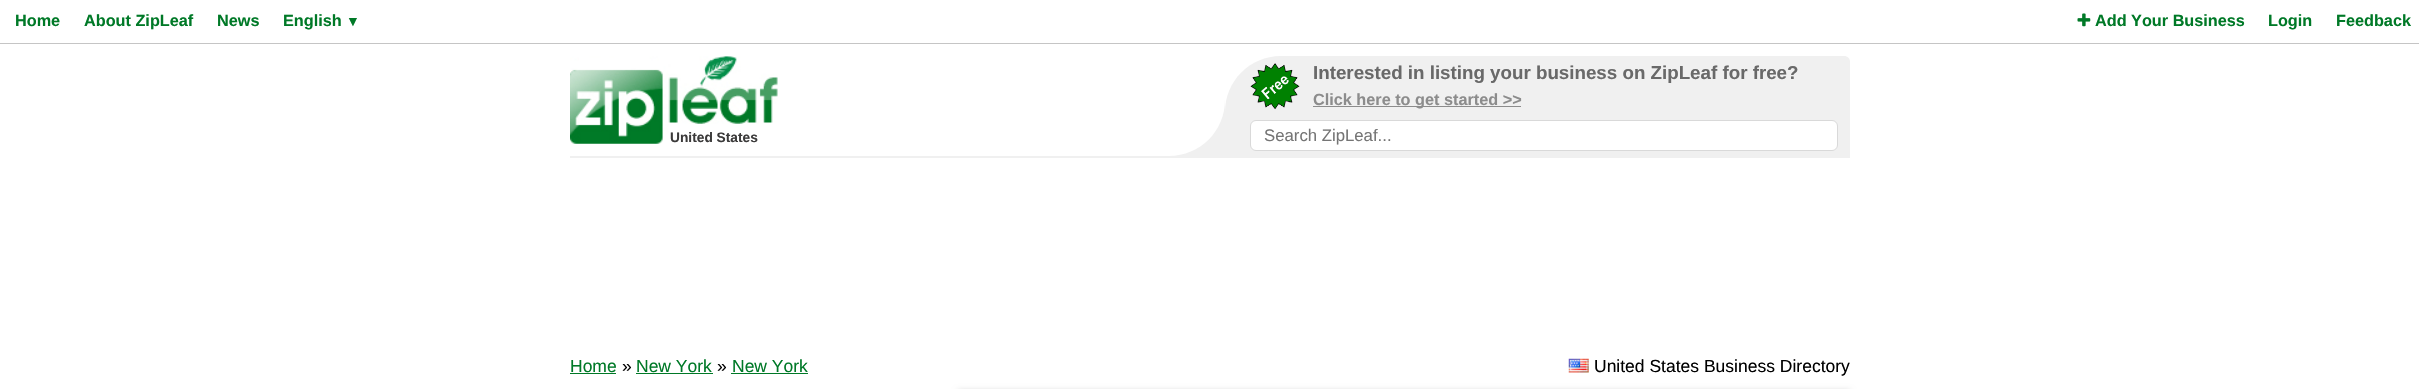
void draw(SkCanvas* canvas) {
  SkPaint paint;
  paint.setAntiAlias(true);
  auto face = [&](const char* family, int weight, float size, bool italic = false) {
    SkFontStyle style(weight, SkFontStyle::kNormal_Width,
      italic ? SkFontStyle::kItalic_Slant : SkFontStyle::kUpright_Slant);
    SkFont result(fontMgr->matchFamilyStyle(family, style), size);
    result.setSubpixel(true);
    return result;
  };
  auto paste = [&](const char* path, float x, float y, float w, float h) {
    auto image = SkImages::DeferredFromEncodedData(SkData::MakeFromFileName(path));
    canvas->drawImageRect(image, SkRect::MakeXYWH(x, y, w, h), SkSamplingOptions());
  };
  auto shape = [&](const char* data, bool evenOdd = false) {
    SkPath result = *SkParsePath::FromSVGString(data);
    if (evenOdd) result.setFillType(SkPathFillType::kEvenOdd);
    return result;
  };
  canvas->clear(0xffffffff);
  paint.setColor(0xffc5c5c5);
  canvas->drawRect(SkRect::MakeXYWH(0, 43, 2419, 1), paint);
  paste("img/1.png", 2077, 13, 14, 14);
  paint.setColor(0xfff0f0f0);
  canvas->drawRect(SkRect::MakeXYWH(570, 100, 1280, 58), paint);
  paint.setColor(0xffffffff);
  canvas->drawPath(shape("M570 56H1225V100C1225 131 1200 156 1169 156H570Z"), paint);
  paste("img/2.png", 570, 56, 208, 88);
  canvas->drawRect(SkRect::MakeXYWH(1225, 100, 625, 12), paint);
  paint.setColor(0xfff0f0f0);
  canvas->drawPath(shape("M1281 56H1844C1847.5 56 1850 58.5 1850 62V156H1225V112C1225 81 1250 56 1281 56Z"), paint);
  paste("img/3.png", 1250, 63, 50, 47);
  paint.setColor(0xff8c8c8c);
  canvas->drawRect(SkRect::MakeXYWH(1313, 106, 208, 1), paint);
  paint.setColor(0xffffffff);
  canvas->drawRoundRect(SkRect::MakeXYWH(1250.5f, 120.5f, 587, 30), 5.5f, 5.5f, paint);
  paint.setStroke(true);
  paint.setStrokeWidth(1);
  paint.setColor(0xffd9d9d9);
  canvas->drawRoundRect(SkRect::MakeXYWH(1250.5f, 120.5f, 587, 30), 5.5f, 5.5f, paint);
  paint.setStroke(false);
  {
    const struct { float x, y, w, h; SkColor color; } items[] = {
      {570, 373, 46, 1, 0xff007927},
      {636, 373, 77, 1, 0xff007927},
      {731, 373, 77, 1, 0xff007927},
    };
    for (auto [x, y, w, h, color] : items) {
      paint.setColor(color);
      canvas->drawRect(SkRect::MakeXYWH(x, y, w, h), paint);
    }
  }
  paste("img/4.png", 1568, 358, 21, 15);
  paint.setColor(0xffcccccc);
  paint.setMaskFilter(SkMaskFilter::MakeBlur(kNormal_SkBlurStyle, 3));
  canvas->drawRect(SkRect::MakeXYWH(958, 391, 892, 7), paint);
  paint.setMaskFilter(nullptr);
  auto f0 = face("Liberation Sans", 700, 16.25f);
  paint.setColor(0xff007927);
  {
    const struct { const char* s; float x, y; } items[] = {
      {"Home", 15, 26},
      {"About ZipLeaf", 84, 26},
      {"News", 217, 26},
      {"English", 283, 26},
    };
    for (auto [s, x, y] : items) {
      canvas->drawString(s, x, y, f0, paint);
    }
  }
  auto f1 = face("Liberation Sans", 700, 14);
  canvas->drawString("▼", 346, 26, f1, paint);
  {
    const struct { const char* s; float x, y; } items[] = {
      {"Add Your Business", 2095, 26},
      {"Login", 2268, 26},
      {"Feedback", 2336, 26},
    };
    for (auto [s, x, y] : items) {
      canvas->drawString(s, x, y, f0, paint);
    }
  }
  auto f2 = face("Liberation Sans", 700, 13.75f);
  paint.setColor(0xff3b3a3a);
  canvas->drawString("United States", 670, 142, f2, paint);
  auto f3 = face("Liberation Sans", 700, 18.75f);
  paint.setColor(0xff696969);
  canvas->drawString("Interested in listing your business on ZipLeaf for free?", 1313, 79, f3, paint);
  paint.setColor(0xff8c8c8c);
  canvas->drawString("Click here to get started >>", 1313, 105, f0, paint);
  auto f4 = face("Liberation Sans", 400, 16.75f);
  paint.setColor(0xff757575);
  canvas->drawString("Search ZipLeaf...", 1264, 141, f4, paint);
  auto f5 = face("Liberation Sans", 400, 17.5f);
  paint.setColor(0xff007927);
  canvas->drawString("Home", 570, 372, f5, paint);
  paint.setColor(0xff000000);
  canvas->drawString("»", 622, 372, f5, paint);
  paint.setColor(0xff007927);
  canvas->drawString("New York", 636, 372, f5, paint);
  paint.setColor(0xff000000);
  canvas->drawString("»", 717, 372, f5, paint);
  paint.setColor(0xff007927);
  canvas->drawString("New York", 732, 372, f5, paint);
  paint.setColor(0xff000000);
  canvas->drawString("United States Business Directory", 1594, 372, f5, paint);
}
